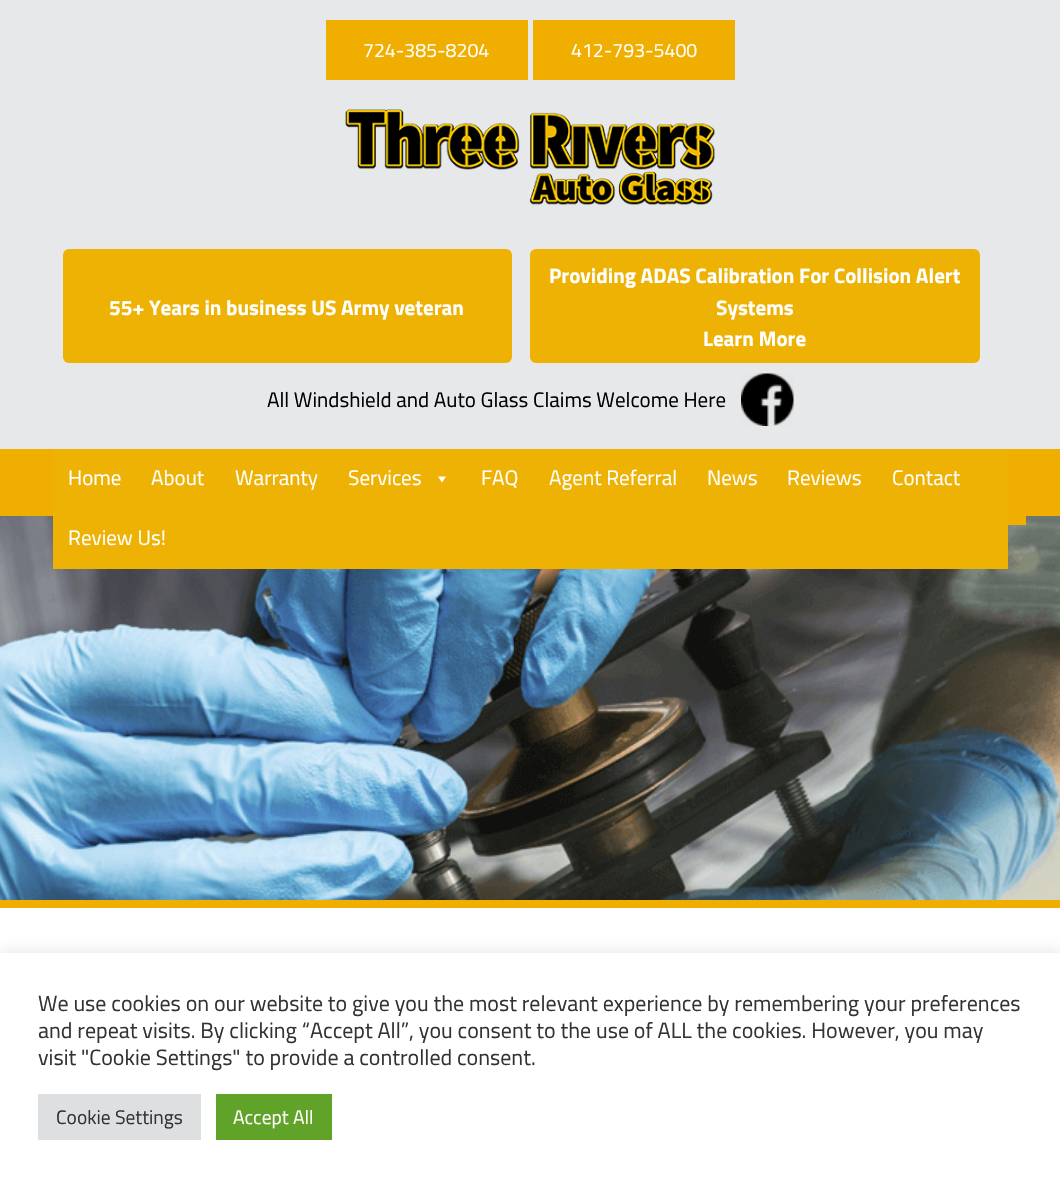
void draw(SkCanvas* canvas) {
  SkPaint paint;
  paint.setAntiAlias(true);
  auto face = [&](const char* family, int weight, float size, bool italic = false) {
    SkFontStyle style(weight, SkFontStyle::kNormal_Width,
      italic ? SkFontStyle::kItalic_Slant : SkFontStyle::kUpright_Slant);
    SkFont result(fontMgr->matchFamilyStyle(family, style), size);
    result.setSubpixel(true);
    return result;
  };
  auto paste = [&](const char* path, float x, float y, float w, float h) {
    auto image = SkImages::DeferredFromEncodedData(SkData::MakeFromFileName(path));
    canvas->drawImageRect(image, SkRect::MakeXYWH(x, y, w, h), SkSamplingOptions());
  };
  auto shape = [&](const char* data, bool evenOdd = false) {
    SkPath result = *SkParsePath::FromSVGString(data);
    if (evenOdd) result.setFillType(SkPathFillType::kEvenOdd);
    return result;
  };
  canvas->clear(0xffe7e8e9);
  paint.setColor(0xfff0af00);
  canvas->drawRect(SkRect::MakeXYWH(326, 20, 202, 60), paint);
  canvas->drawRect(SkRect::MakeXYWH(533, 20, 202, 60), paint);
  paste("img/1.png", 345, 109, 370, 96);
  paint.setColor(0xffeeb205);
  canvas->drawRoundRect(SkRect::MakeXYWH(63, 249, 449, 114), 6, 6, paint);
  canvas->drawRoundRect(SkRect::MakeXYWH(530, 249, 450, 114), 6, 6, paint);
  paste("img/2.png", 741, 373, 53, 53);
  paint.setColor(0xfff0af00);
  canvas->drawRect(SkRect::MakeXYWH(0, 449, 1060, 67), paint);
  paste("img/3.png", 0, 516, 1060, 384);
  paint.setColor(0xffeeb205);
  canvas->drawRect(SkRect::MakeXYWH(53, 449, 955, 120), paint);
  paint.setColor(0xffffffff);
  canvas->drawPath(shape("M446 476.5L442 482.5L438 476.5Z"), paint);
  {
    const struct { float x, y, w, h; SkColor color; } items[] = {
      {0, 900, 1060, 8, 0xfff0af00},
      {1008, 516, 18, 9, 0xfff0af00},
      {0, 908, 1060, 45, 0xffffffff},
    };
    for (auto [x, y, w, h, color] : items) {
      paint.setColor(color);
      canvas->drawRect(SkRect::MakeXYWH(x, y, w, h), paint);
    }
  }
  paint.setColor(0x4dacabab);
  paint.setMaskFilter(SkMaskFilter::MakeBlur(kNormal_SkBlurStyle, 7.5f));
  canvas->drawRect(SkRect::MakeXYWH(0, 951, 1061, 233), paint);
  paint.setMaskFilter(nullptr);
  {
    const struct { float x, y, w, h; SkColor color; } items[] = {
      {0, 953, 1060, 231, 0xffffffff},
      {38, 1094, 163, 46, 0xffdedfe0},
      {216, 1094, 116, 46, 0xff61a229},
    };
    for (auto [x, y, w, h, color] : items) {
      paint.setColor(color);
      canvas->drawRect(SkRect::MakeXYWH(x, y, w, h), paint);
    }
  }
  auto f0 = face("Titillium Web", 400, 19.5f);
  paint.setColor(0xffffffff);
  canvas->drawString("724-385-8204", 363, 57, f0, paint);
  canvas->drawString("412-793-5400", 571, 57, f0, paint);
  auto f1 = face("Titillium Web", 700, 21);
  {
    const struct { const char* s; float x, y; } items[] = {
      {"55+ Years in business US Army veteran", 109, 315},
      {"Providing ADAS Calibration For Collision Alert", 549, 283},
      {"Systems", 716, 315},
      {"Learn More", 703, 346},
    };
    for (auto [s, x, y] : items) {
      canvas->drawString(s, x, y, f1, paint);
    }
  }
  auto f2 = face("Titillium Web", 400, 21);
  paint.setColor(0xff000000);
  canvas->drawString("All Windshield and Auto Glass Claims Welcome Here", 267, 407, f2, paint);
  paint.setColor(0xffffffff);
  {
    const struct { const char* s; float x, y; } items[] = {
      {"Home", 68, 485},
      {"About", 151, 485},
      {"Warranty", 235, 485},
      {"Services", 348, 485},
      {"FAQ", 481, 485},
      {"Agent Referral", 549, 485},
      {"News", 707, 485},
      {"Reviews", 787, 485},
      {"Contact", 892, 485},
      {"Review Us!", 68, 545},
    };
    for (auto [s, x, y] : items) {
      canvas->drawString(s, x, y, f2, paint);
    }
  }
  auto f3 = face("Titillium Web", 400, 22);
  paint.setColor(0xff333333);
  {
    const struct { const char* s; float x, y; } items[] = {
      {"We use cookies on our website to give you the most relevant experience by remembering your preferences", 38, 1011},
      {"and repeat visits. By clicking “Accept All”, you consent to the use of ALL the cookies. However, you may", 38, 1038},
      {"visit \"Cookie Settings\" to provide a controlled consent.", 38, 1065},
    };
    for (auto [s, x, y] : items) {
      canvas->drawString(s, x, y, f3, paint);
    }
  }
  canvas->drawString("Cookie Settings", 56, 1124, f0, paint);
  paint.setColor(0xffffffff);
  canvas->drawString("Accept All", 233, 1124, f0, paint);
}
